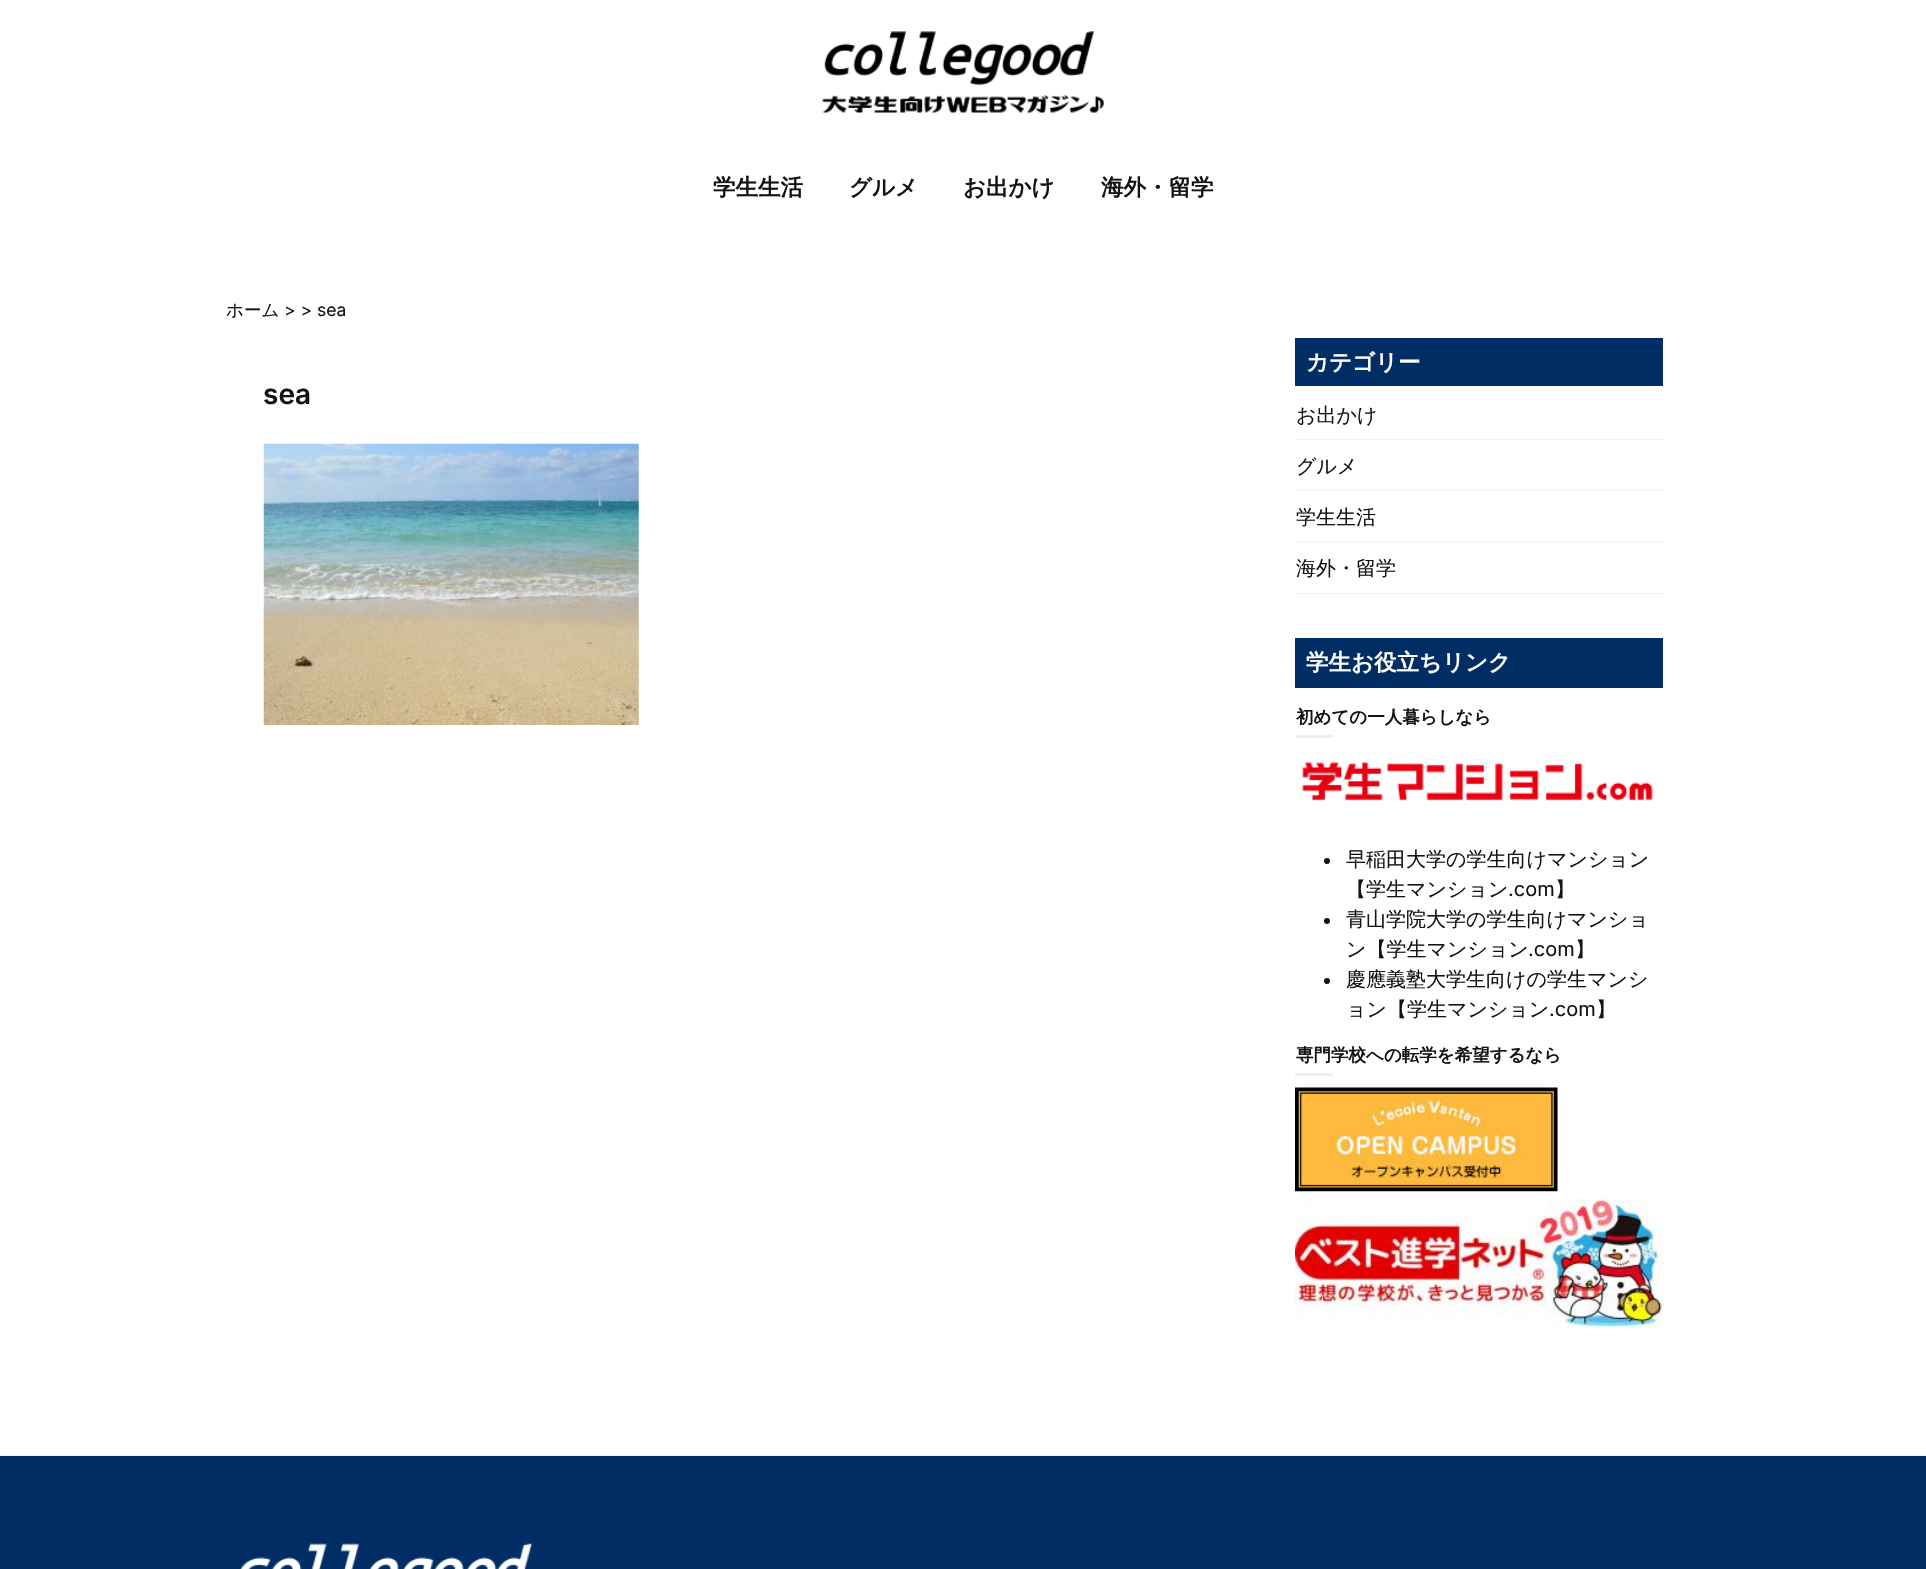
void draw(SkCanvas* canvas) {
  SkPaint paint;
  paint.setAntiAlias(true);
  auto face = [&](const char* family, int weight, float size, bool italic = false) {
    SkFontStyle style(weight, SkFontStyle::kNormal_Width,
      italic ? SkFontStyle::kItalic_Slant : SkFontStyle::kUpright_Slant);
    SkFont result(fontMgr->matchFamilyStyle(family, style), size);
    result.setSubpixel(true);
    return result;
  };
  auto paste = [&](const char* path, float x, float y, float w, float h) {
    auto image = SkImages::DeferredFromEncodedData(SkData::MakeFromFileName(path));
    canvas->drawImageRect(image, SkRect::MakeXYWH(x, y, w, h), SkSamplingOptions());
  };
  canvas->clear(0xffffffff);
  paste("img/1.png", 822, 31, 282, 82);
  paste("img/2.png", 263, 443, 376, 282);
  {
    const struct { float x, y, w, h; SkColor color; } items[] = {
      {1295, 338, 368, 48, 0xff002d64},
      {1295, 439, 368, 1, 0xffefefef},
      {1295, 490, 368, 1, 0xffefefef},
      {1295, 541, 368, 1, 0xffefefef},
      {1295, 593, 368, 1, 0xffefefef},
      {1295, 638, 368, 50, 0xff002d64},
      {1295, 735, 38, 3, 0xffefefef},
    };
    for (auto [x, y, w, h, color] : items) {
      paint.setColor(color);
      canvas->drawRect(SkRect::MakeXYWH(x, y, w, h), paint);
    }
  }
  paste("img/3.png", 1302, 762, 351, 39);
  paint.setColor(0xff111314);
  canvas->drawCircle(1327, 861, 3, paint);
  canvas->drawCircle(1327, 921, 3, paint);
  canvas->drawCircle(1327, 981, 3, paint);
  paint.setColor(0xffefefef);
  canvas->drawRect(SkRect::MakeXYWH(1295, 1073, 38, 3), paint);
  paste("img/4.png", 1295, 1087, 263, 105);
  paste("img/5.png", 1295, 1198, 368, 131);
  paint.setColor(0xff002d64);
  canvas->drawRect(SkRect::MakeXYWH(0, 1456, 1926, 113), paint);
  paint.setColor(0xffefefef);
  canvas->drawRect(SkRect::MakeXYWH(0, 1455, 1926, 1), paint);
  paste("img/6.png", 240, 1543, 293, 26);
  auto f0 = face("WenQuanYi Zen Hei", 700, 22.5f);
  paint.setColor(0xff111314);
  {
    const struct { const char* s; float x, y; } items[] = {
      {"学生生活", 713, 195},
      {"グルメ", 849, 195},
      {"お出かけ", 963, 195},
      {"海外・留学", 1101, 195},
    };
    for (auto [s, x, y] : items) {
      canvas->drawString(s, x, y, f0, paint);
    }
  }
  auto f1 = face("WenQuanYi Zen Hei", 500, 17.5f);
  canvas->drawString("ホーム", 226, 316, f1, paint);
  auto f2 = face("Inter", 400, 17.5f);
  canvas->drawString("> > sea", 284, 316, f2, paint);
  auto f3 = face("Inter", 600, 28);
  canvas->drawString("sea", 263, 404, f3, paint);
  paint.setColor(0xffffffff);
  canvas->drawString("カテゴリー", 1306, 370, f0, paint);
  auto f4 = face("WenQuanYi Zen Hei", 500, 20);
  paint.setColor(0xff111314);
  {
    const struct { const char* s; float x, y; } items[] = {
      {"お出かけ", 1296, 422},
      {"グルメ", 1296, 473},
      {"学生生活", 1296, 524},
      {"海外・留学", 1296, 575},
    };
    for (auto [s, x, y] : items) {
      canvas->drawString(s, x, y, f4, paint);
    }
  }
  paint.setColor(0xffffffff);
  canvas->drawString("学生お役立ちリンク", 1306, 670, f0, paint);
  auto f5 = face("WenQuanYi Zen Hei", 700, 17.5f);
  paint.setColor(0xff111314);
  canvas->drawString("初めての一人暮らしなら", 1296, 723, f5, paint);
  canvas->drawString("早稲田大学の学生向けマンション", 1346, 866, f4, paint);
  canvas->drawString("【学生マンション", 1346, 896, f4, paint);
  auto f6 = face("Inter", 400, 20);
  canvas->drawString(".com", 1508, 896, f6, paint);
  {
    const struct { const char* s; float x, y; } items[] = {
      {"】", 1555, 896},
      {"青山学院大学の学生向けマンショ", 1346, 926},
      {"ン【学生マンション", 1346, 956},
    };
    for (auto [s, x, y] : items) {
      canvas->drawString(s, x, y, f4, paint);
    }
  }
  canvas->drawString(".com", 1528, 956, f6, paint);
  {
    const struct { const char* s; float x, y; } items[] = {
      {"】", 1575, 956},
      {"慶應義塾大学生向けの学生マンシ", 1346, 986},
      {"ョン【学生マンション", 1346, 1016},
    };
    for (auto [s, x, y] : items) {
      canvas->drawString(s, x, y, f4, paint);
    }
  }
  canvas->drawString(".com", 1549, 1016, f6, paint);
  canvas->drawString("】", 1596, 1016, f4, paint);
  canvas->drawString("専門学校への転学を希望するなら", 1296, 1061, f5, paint);
}
